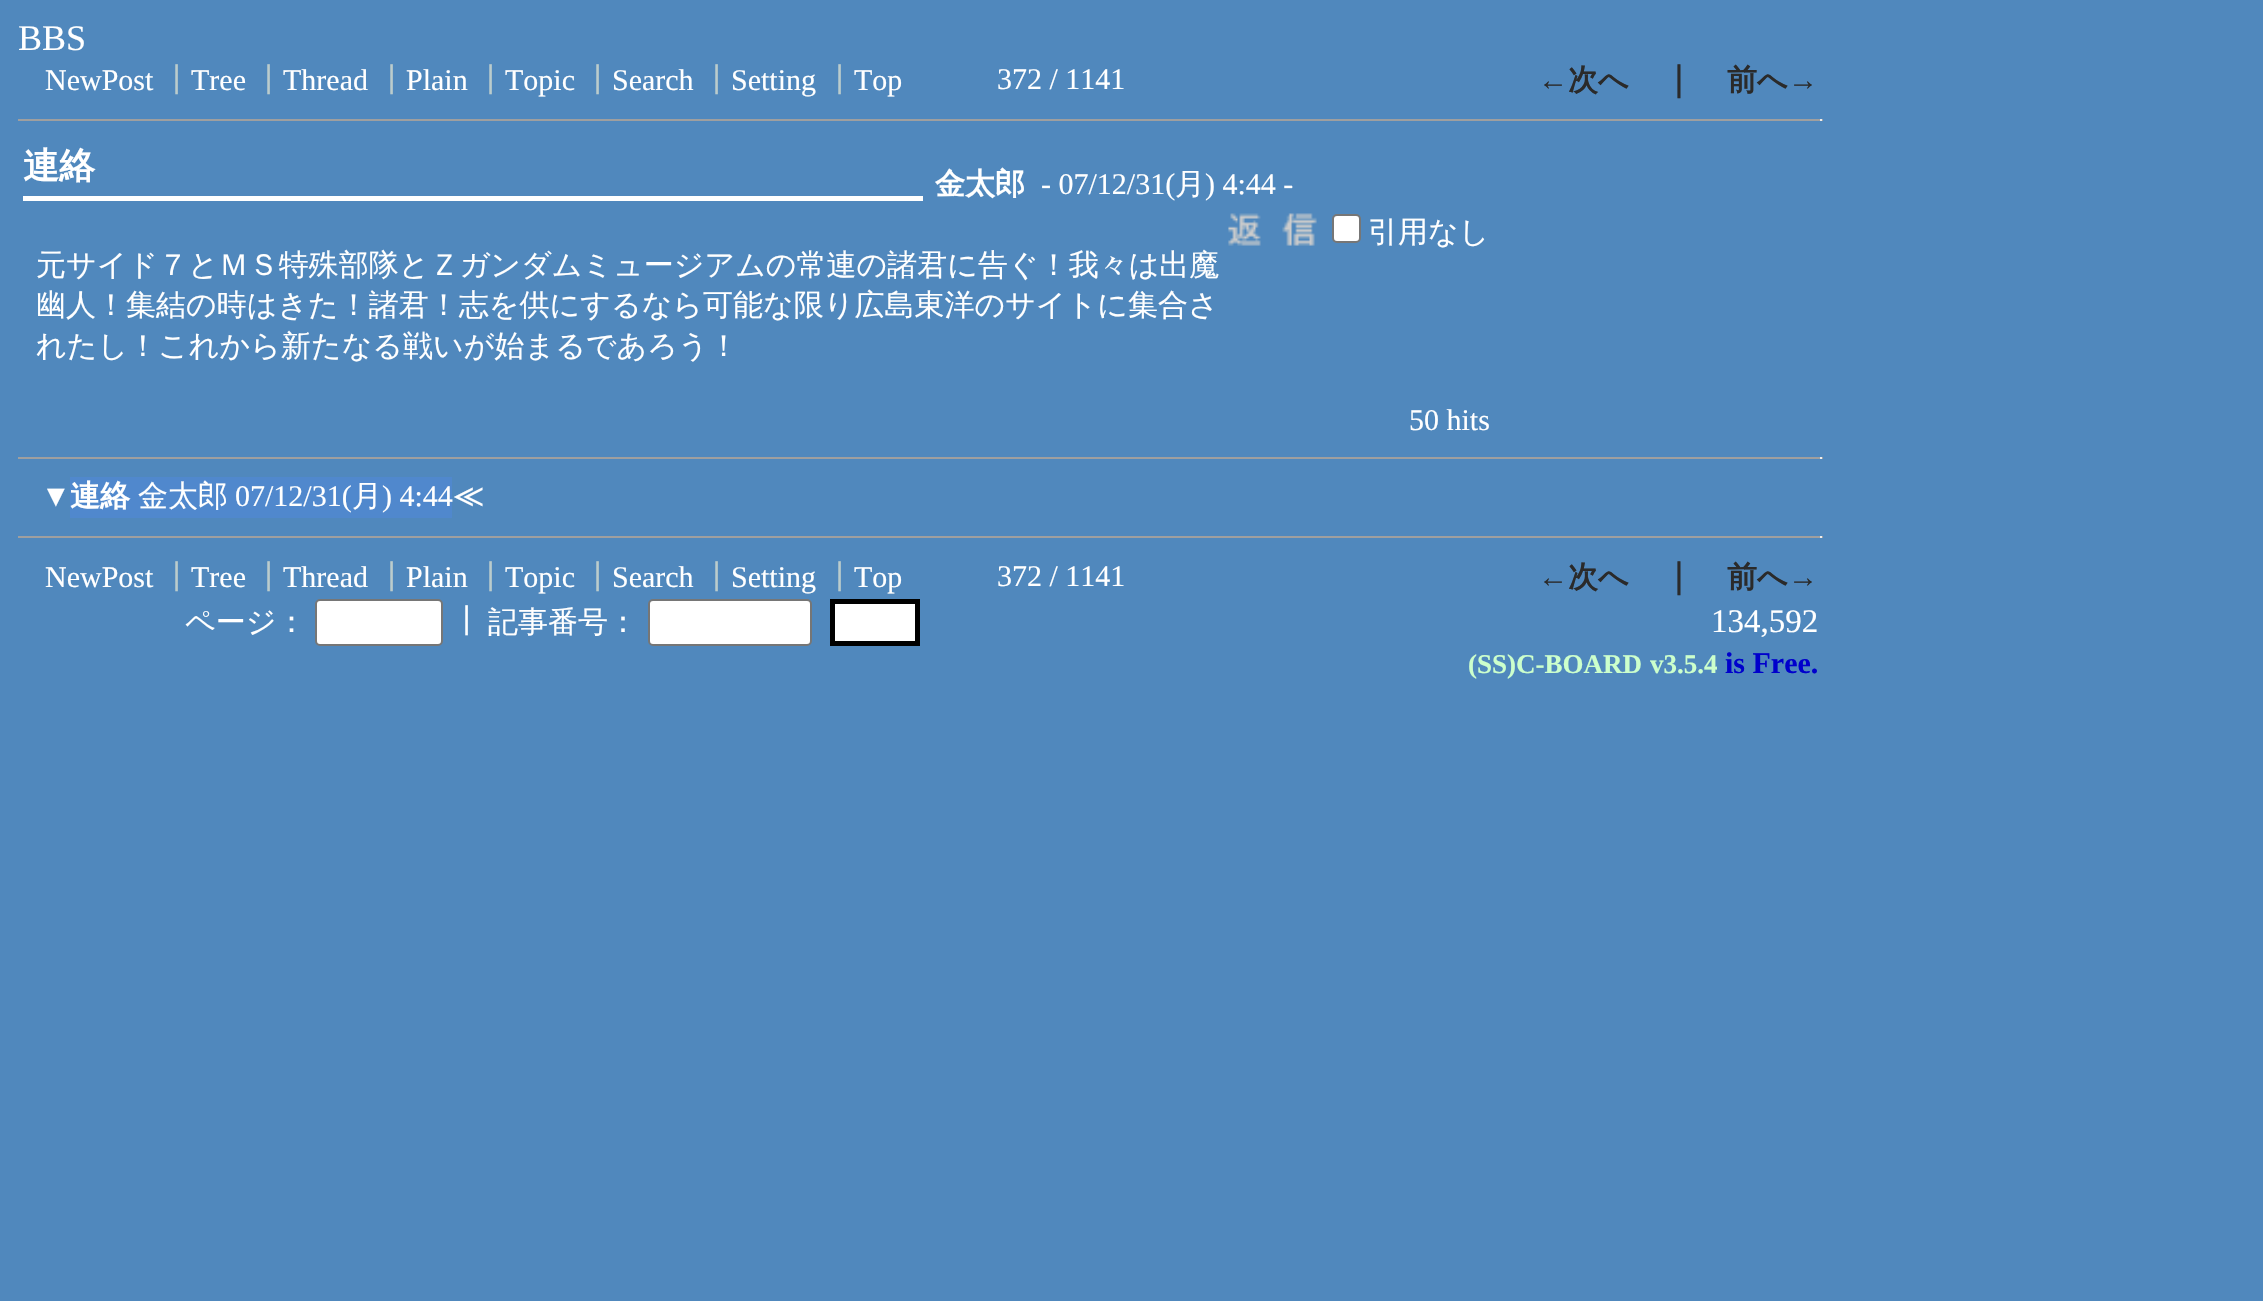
void draw(SkCanvas* canvas) {
  SkPaint paint;
  paint.setAntiAlias(true);
  auto face = [&](const char* family, int weight, float size, bool italic = false) {
    SkFontStyle style(weight, SkFontStyle::kNormal_Width,
      italic ? SkFontStyle::kItalic_Slant : SkFontStyle::kUpright_Slant);
    SkFont result(fontMgr->matchFamilyStyle(family, style), size);
    result.setSubpixel(true);
    return result;
  };
  auto paste = [&](const char* path, float x, float y, float w, float h) {
    auto image = SkImages::DeferredFromEncodedData(SkData::MakeFromFileName(path));
    canvas->drawImageRect(image, SkRect::MakeXYWH(x, y, w, h), SkSamplingOptions());
  };
  canvas->clear(0xff5088bd);
  {
    const struct { float x, y, w, h; SkColor color; } items[] = {
      {18, 119, 1805, 2, 0xff9f9f9f},
      {1820, 119, 2, 2, 0xffeeeeee},
      {23, 196, 900, 5, 0xffffffff},
    };
    for (auto [x, y, w, h, color] : items) {
      paint.setColor(color);
      canvas->drawRect(SkRect::MakeXYWH(x, y, w, h), paint);
    }
  }
  paste("img/1.png", 1228, 213, 89, 33);
  canvas->drawRoundRect(SkRect::MakeXYWH(1333, 215, 27, 27), 4, 4, paint);
  paint.setStroke(true);
  paint.setStrokeWidth(2);
  paint.setColor(0xff767676);
  canvas->drawRoundRect(SkRect::MakeXYWH(1333, 215, 27, 27), 4, 4, paint);
  paint.setStroke(false);
  {
    const struct { float x, y, w, h; SkColor color; } items[] = {
      {18, 457, 1805, 2, 0xff9f9f9f},
      {1820, 457, 2, 2, 0xffeeeeee},
      {70, 477, 382, 41, 0xff5088cd},
      {18, 536, 1805, 2, 0xff9f9f9f},
      {1820, 536, 2, 2, 0xffeeeeee},
    };
    for (auto [x, y, w, h, color] : items) {
      paint.setColor(color);
      canvas->drawRect(SkRect::MakeXYWH(x, y, w, h), paint);
    }
  }
  paint.setColor(0xffffffff);
  canvas->drawRoundRect(SkRect::MakeXYWH(316, 600, 126, 45), 4, 4, paint);
  paint.setStroke(true);
  paint.setColor(0xff767676);
  canvas->drawRoundRect(SkRect::MakeXYWH(316, 600, 126, 45), 4, 4, paint);
  paint.setStroke(false);
  paint.setColor(0xffffffff);
  canvas->drawRoundRect(SkRect::MakeXYWH(649, 600, 162, 45), 4, 4, paint);
  paint.setStroke(true);
  paint.setColor(0xff767676);
  canvas->drawRoundRect(SkRect::MakeXYWH(649, 600, 162, 45), 4, 4, paint);
  paint.setStroke(false);
  paint.setColor(0xffffffff);
  canvas->drawRect(SkRect::MakeXYWH(832.5f, 601.5f, 85, 42), paint);
  paint.setStroke(true);
  paint.setStrokeWidth(5);
  paint.setColor(0xff000000);
  canvas->drawRect(SkRect::MakeXYWH(832.5f, 601.5f, 85, 42), paint);
  auto f0 = face("Liberation Serif", 400, 36);
  paint.setStroke(false);
  paint.setColor(0xffffffff);
  canvas->drawString("BBS", 18, 50, f0, paint);
  auto f1 = face("Liberation Serif", 400, 30);
  canvas->drawString("NewPost", 45, 90, f1, paint);
  auto f2 = face("WenQuanYi Zen Hei", 500, 30);
  paint.setColor(0xffbbcccc);
  canvas->drawString("┃", 161, 90, f2, paint);
  paint.setColor(0xffffffff);
  canvas->drawString("Tree", 191, 90, f1, paint);
  paint.setColor(0xffbbcccc);
  canvas->drawString("┃", 253, 90, f2, paint);
  paint.setColor(0xffffffff);
  canvas->drawString("Thread", 283, 90, f1, paint);
  paint.setColor(0xffbbcccc);
  canvas->drawString("┃", 376, 90, f2, paint);
  paint.setColor(0xffffffff);
  canvas->drawString("Plain", 406, 90, f1, paint);
  paint.setColor(0xffbbcccc);
  canvas->drawString("┃", 475, 90, f2, paint);
  paint.setColor(0xffffffff);
  canvas->drawString("Topic", 505, 90, f1, paint);
  paint.setColor(0xffbbcccc);
  canvas->drawString("┃", 582, 90, f2, paint);
  paint.setColor(0xffffffff);
  canvas->drawString("Search", 612, 90, f1, paint);
  paint.setColor(0xffbbcccc);
  canvas->drawString("┃", 701, 90, f2, paint);
  paint.setColor(0xffffffff);
  canvas->drawString("Setting", 731, 90, f1, paint);
  paint.setColor(0xffbbcccc);
  canvas->drawString("┃", 824, 90, f2, paint);
  paint.setColor(0xffffffff);
  canvas->drawString("Top", 854, 90, f1, paint);
  canvas->drawString("372 / 1141", 997, 89, f1, paint);
  auto f3 = face("Liberation Serif", 700, 30);
  paint.setColor(0xff2a2a2a);
  canvas->drawString("←", 1538, 90, f3, paint);
  auto f4 = face("WenQuanYi Zen Hei", 700, 30);
  canvas->drawString("次へ", 1568, 90, f4, paint);
  auto f5 = face("WenQuanYi Zen Hei", 700, 33);
  canvas->drawString("｜", 1662, 90, f5, paint);
  canvas->drawString("前へ", 1727, 90, f4, paint);
  canvas->drawString("→", 1788, 90, f3, paint);
  auto f6 = face("WenQuanYi Zen Hei", 700, 36);
  paint.setColor(0xffffffff);
  canvas->drawString("連絡", 23, 178, f6, paint);
  canvas->drawString("金太郎", 935, 194, f4, paint);
  canvas->drawString("- 07/12/31(", 1041, 194, f1, paint);
  canvas->drawString("月", 1175, 194, f2, paint);
  canvas->drawString(") 4:44 -", 1205, 194, f1, paint);
  {
    const struct { const char* s; float x, y; } items[] = {
      {"引用なし", 1368, 242},
      {"元サイド７とＭＳ特殊部隊とＺガンダムミュージアムの常連の諸君に告ぐ！我々は出魔", 36, 275},
      {"幽人！集結の時はきた！諸君！志を供にするなら可能な限り広島東洋のサイトに集合さ", 36, 315},
      {"れたし！これから新たなる戦いが始まるであろう！", 36, 356},
    };
    for (auto [s, x, y] : items) {
      canvas->drawString(s, x, y, f2, paint);
    }
  }
  canvas->drawString("50 hits", 1409, 430, f1, paint);
  canvas->drawString("▼", 41, 506, f1, paint);
  canvas->drawString("連絡", 70, 506, f4, paint);
  canvas->drawString("金太郎", 138, 506, f2, paint);
  canvas->drawString("07/12/31(", 235, 506, f1, paint);
  canvas->drawString("月", 352, 506, f2, paint);
  canvas->drawString(") 4:44", 382, 506, f1, paint);
  canvas->drawString("≪", 453, 506, f4, paint);
  canvas->drawString("NewPost", 45, 587, f1, paint);
  paint.setColor(0xffbbcccc);
  canvas->drawString("┃", 161, 587, f2, paint);
  paint.setColor(0xffffffff);
  canvas->drawString("Tree", 191, 587, f1, paint);
  paint.setColor(0xffbbcccc);
  canvas->drawString("┃", 253, 587, f2, paint);
  paint.setColor(0xffffffff);
  canvas->drawString("Thread", 283, 587, f1, paint);
  paint.setColor(0xffbbcccc);
  canvas->drawString("┃", 376, 587, f2, paint);
  paint.setColor(0xffffffff);
  canvas->drawString("Plain", 406, 587, f1, paint);
  paint.setColor(0xffbbcccc);
  canvas->drawString("┃", 475, 587, f2, paint);
  paint.setColor(0xffffffff);
  canvas->drawString("Topic", 505, 587, f1, paint);
  paint.setColor(0xffbbcccc);
  canvas->drawString("┃", 582, 587, f2, paint);
  paint.setColor(0xffffffff);
  canvas->drawString("Search", 612, 587, f1, paint);
  paint.setColor(0xffbbcccc);
  canvas->drawString("┃", 701, 587, f2, paint);
  paint.setColor(0xffffffff);
  canvas->drawString("Setting", 731, 587, f1, paint);
  paint.setColor(0xffbbcccc);
  canvas->drawString("┃", 824, 587, f2, paint);
  paint.setColor(0xffffffff);
  canvas->drawString("Top", 854, 587, f1, paint);
  canvas->drawString("372 / 1141", 997, 586, f1, paint);
  paint.setColor(0xff2a2a2a);
  canvas->drawString("←", 1538, 587, f3, paint);
  canvas->drawString("次へ", 1568, 587, f4, paint);
  canvas->drawString("｜", 1662, 587, f5, paint);
  canvas->drawString("前へ", 1727, 587, f4, paint);
  canvas->drawString("→", 1788, 587, f3, paint);
  paint.setColor(0xffffffff);
  {
    const struct { const char* s; float x, y; } items[] = {
      {"ページ：", 185, 632},
      {"┃", 451, 631},
      {"記事番号：", 488, 632},
    };
    for (auto [s, x, y] : items) {
      canvas->drawString(s, x, y, f2, paint);
    }
  }
  auto f7 = face("Liberation Serif", 400, 33);
  canvas->drawString("134,592", 1711, 632, f7, paint);
  auto f8 = face("Liberation Serif", 700, 27);
  paint.setColor(0xffccffcc);
  canvas->drawString("(SS)C-BOARD", 1468, 673, f8, paint);
  canvas->drawString("v3.5.4", 1650, 673, f8, paint);
  paint.setColor(0xff0000cc);
  canvas->drawString("is Free.", 1725, 673, f3, paint);
}
